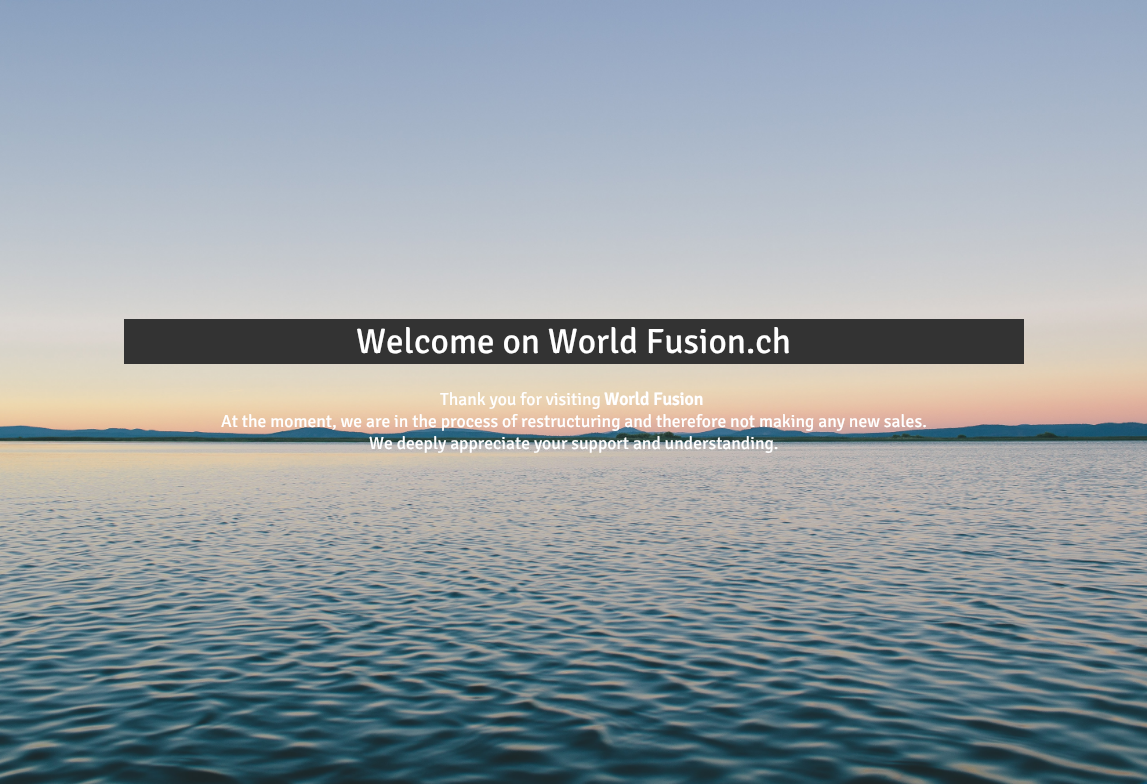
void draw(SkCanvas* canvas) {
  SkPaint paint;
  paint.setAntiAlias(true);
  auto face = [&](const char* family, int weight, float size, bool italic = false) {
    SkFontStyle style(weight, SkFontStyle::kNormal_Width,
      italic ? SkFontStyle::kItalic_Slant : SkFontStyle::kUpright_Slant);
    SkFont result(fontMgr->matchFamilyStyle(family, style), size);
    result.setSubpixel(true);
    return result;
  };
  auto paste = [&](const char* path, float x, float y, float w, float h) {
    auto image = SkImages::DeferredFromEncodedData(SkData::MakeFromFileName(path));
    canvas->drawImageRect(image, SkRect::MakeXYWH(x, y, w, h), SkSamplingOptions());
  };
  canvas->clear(0xffffffff);
  paste("img/1.png", 0, 0, 1147, 784);
  paint.setColor(0xff333333);
  canvas->drawRect(SkRect::MakeXYWH(124, 319, 900, 45), paint);
  auto f0 = face("Signika", 300, 35.25f);
  paint.setColor(0xffffffff);
  canvas->drawString("Welcome on World Fusion.ch", 356, 353, f0, paint);
  auto f1 = face("Signika", 300, 17.6f);
  canvas->drawString("Thank you for visiting", 440, 405, f1, paint);
  auto f2 = face("Signika", 700, 17.6f);
  canvas->drawString("World Fusion", 604, 405, f2, paint);
  canvas->drawString("At the moment, we are in the process of restructuring and therefore not making any new sales.", 221, 427, f1, paint);
  canvas->drawString("We deeply appreciate your support and understanding.", 369, 449, f1, paint);
}
